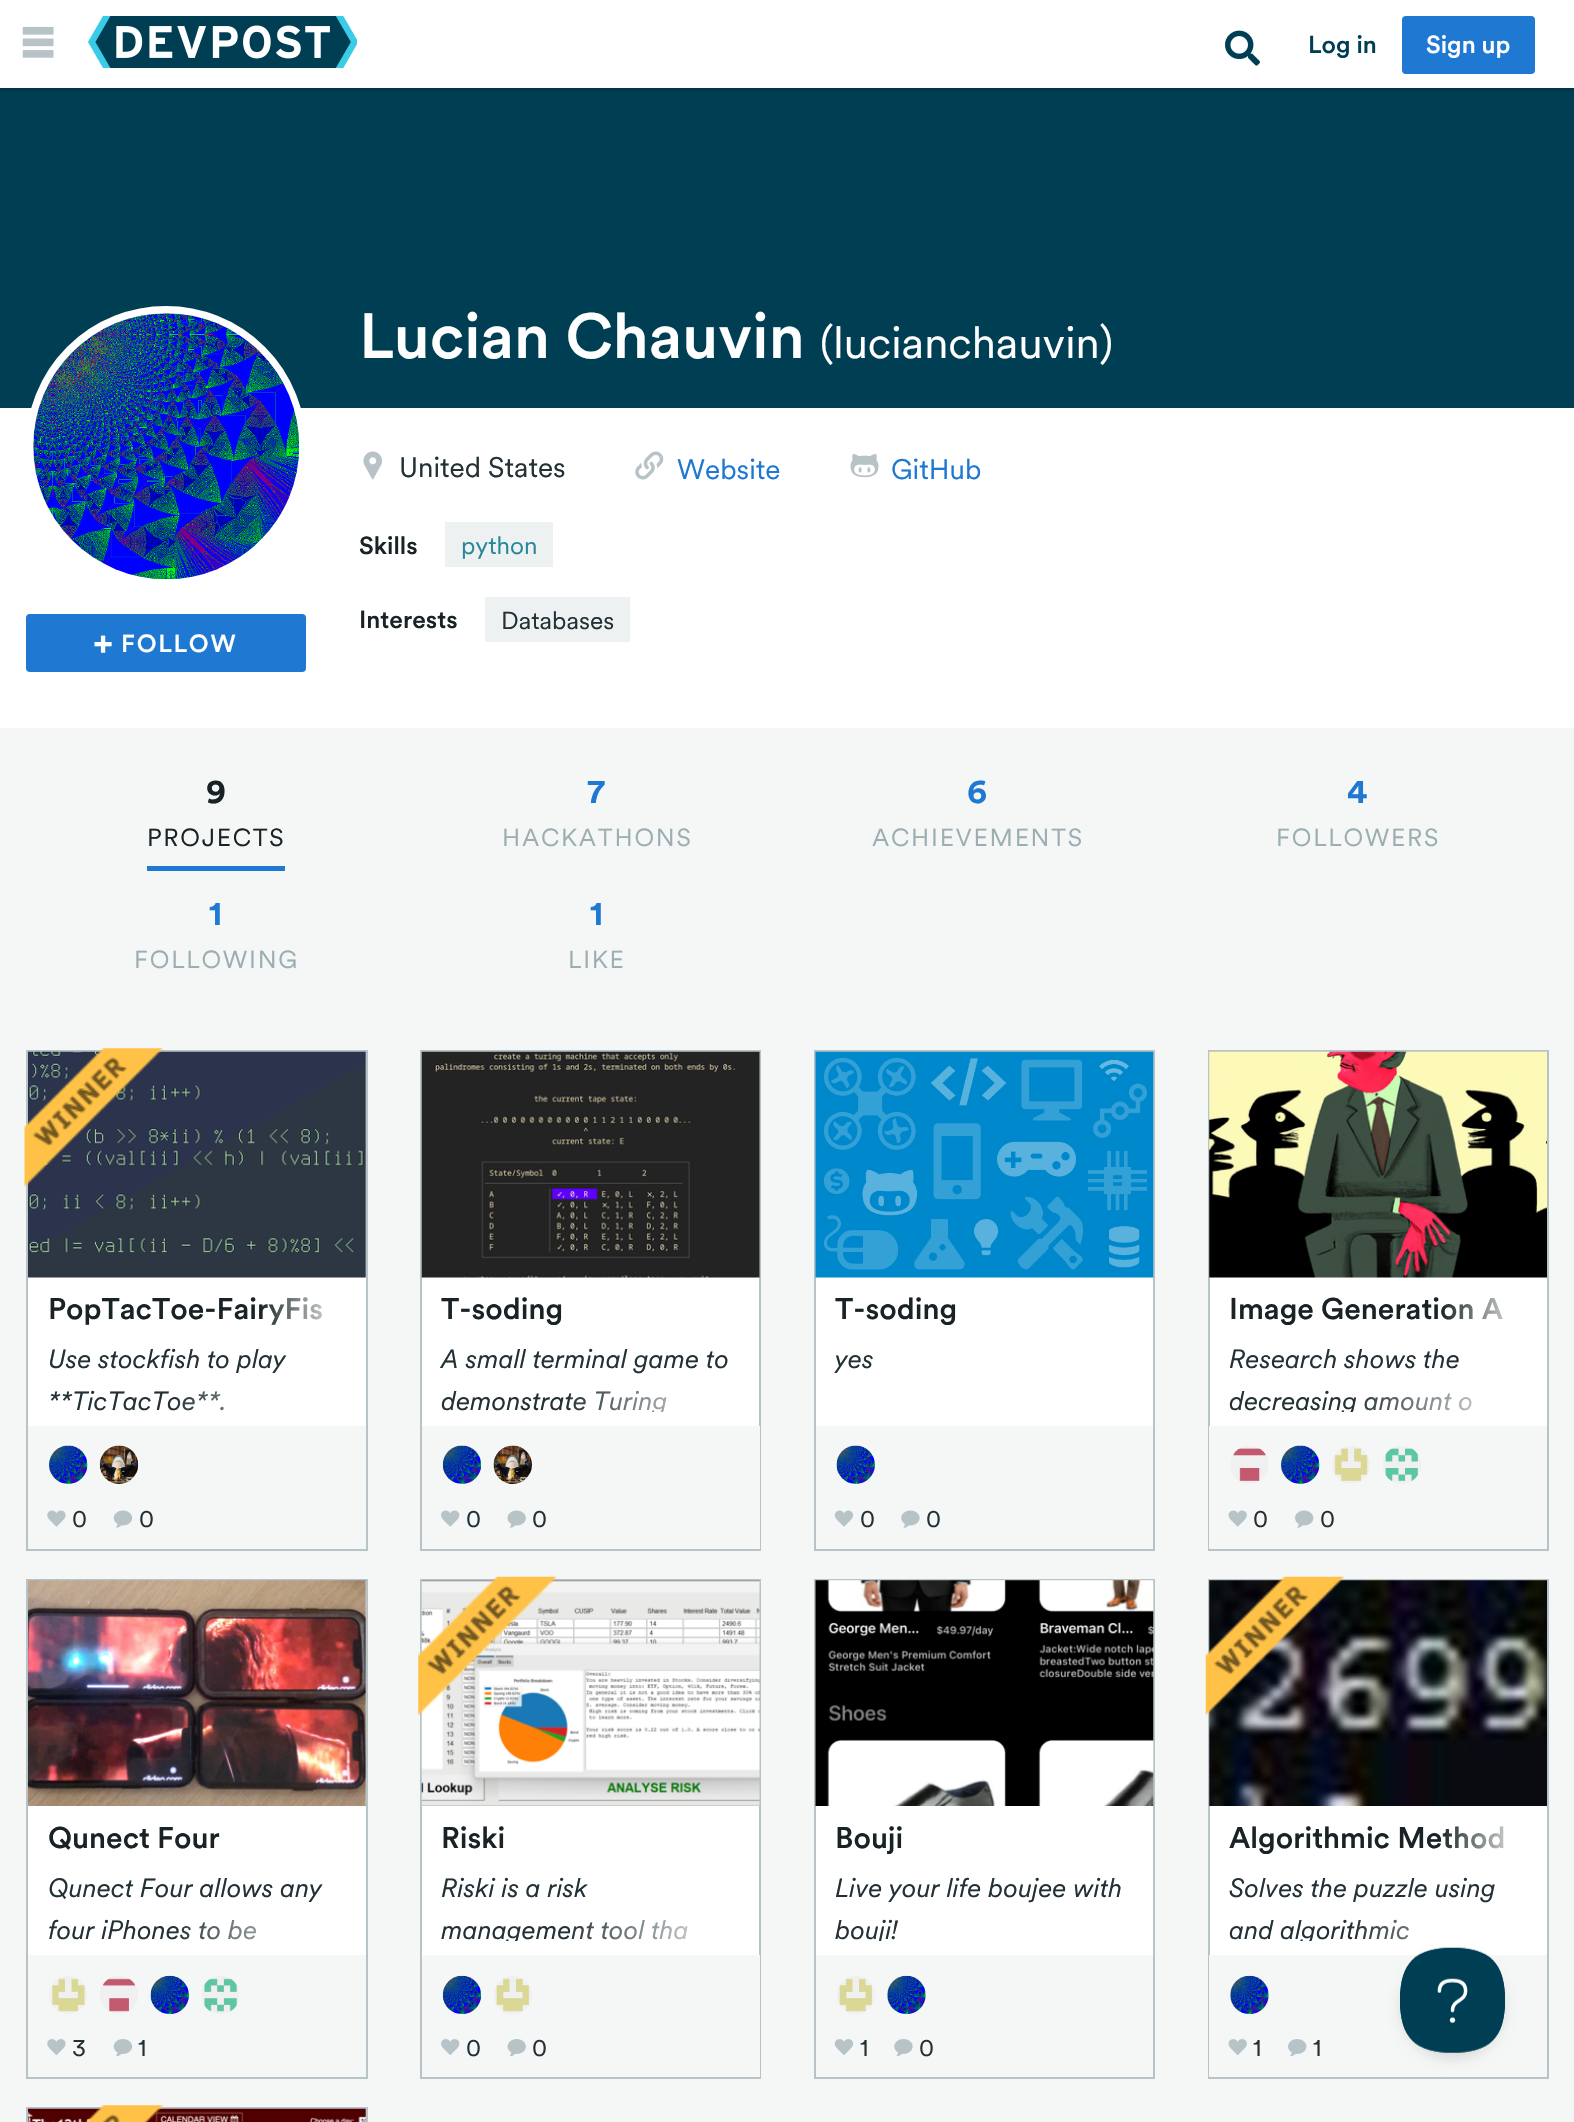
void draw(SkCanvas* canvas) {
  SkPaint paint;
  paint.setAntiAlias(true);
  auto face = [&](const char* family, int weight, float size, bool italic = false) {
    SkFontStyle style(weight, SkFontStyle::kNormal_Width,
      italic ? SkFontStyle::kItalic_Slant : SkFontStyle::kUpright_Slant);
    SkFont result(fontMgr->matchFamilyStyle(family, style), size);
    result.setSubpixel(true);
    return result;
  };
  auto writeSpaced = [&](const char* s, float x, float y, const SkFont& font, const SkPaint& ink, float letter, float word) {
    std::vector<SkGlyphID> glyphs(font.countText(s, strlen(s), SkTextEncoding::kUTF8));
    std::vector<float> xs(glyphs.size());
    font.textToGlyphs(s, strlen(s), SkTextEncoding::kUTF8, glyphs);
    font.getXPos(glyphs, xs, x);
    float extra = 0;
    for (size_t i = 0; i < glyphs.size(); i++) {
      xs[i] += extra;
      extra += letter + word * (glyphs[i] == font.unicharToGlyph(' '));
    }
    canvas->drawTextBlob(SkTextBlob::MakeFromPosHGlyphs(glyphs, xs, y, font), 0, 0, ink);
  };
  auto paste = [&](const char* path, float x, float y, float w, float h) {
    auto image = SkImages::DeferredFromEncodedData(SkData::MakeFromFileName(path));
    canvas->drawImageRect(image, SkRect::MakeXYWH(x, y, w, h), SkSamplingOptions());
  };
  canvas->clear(0xffffffff);
  paint.setColor(0xff003e54);
  canvas->drawRect(SkRect::MakeXYWH(0, 88, 1574, 320), paint);
  paint.setColor(0x4d000000);
  paint.setMaskFilter(SkMaskFilter::MakeBlur(kNormal_SkBlurStyle, 2.5f));
  canvas->drawRect(SkRect::MakeXYWH(0, 2, 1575, 87), paint);
  paint.setMaskFilter(nullptr);
  paint.setColor(0xffffffff);
  canvas->drawRect(SkRect::MakeXYWH(0, 0, 1574, 88), paint);
  paste("img/1.png", 22, 26, 32, 32);
  paste("img/2.png", 88, 16, 269, 52);
  paste("img/3.png", 1225, 30, 35, 36);
  paint.setColor(0xff1f78d1);
  canvas->drawRoundRect(SkRect::MakeXYWH(1402, 16, 133, 58), 4, 4, paint);
  paste("img/4.png", 363, 451, 19, 29);
  paste("img/5.png", 635, 451, 29, 29);
  paste("img/6.png", 850, 453, 29, 25);
  paint.setColor(0xffedf1f2);
  canvas->drawRect(SkRect::MakeXYWH(445, 522, 108, 45), paint);
  canvas->drawRect(SkRect::MakeXYWH(485, 597, 145, 45), paint);
  paint.setColor(0xffffffff);
  canvas->drawCircle(166, 446, 136.5f, paint);
  paint.setStroke(true);
  paint.setStrokeWidth(7);
  canvas->drawCircle(166, 446, 136.5f, paint);
  paste("img/7.png", 33, 313, 267, 267);
  paint.setStroke(false);
  paint.setColor(0xff1f78d1);
  canvas->drawRoundRect(SkRect::MakeXYWH(26, 614, 280, 58), 4, 4, paint);
  paste("img/8.png", 94, 635, 18, 18);
  {
    const struct { float x, y, w, h; SkColor color; } items[] = {
      {0, 728, 1574, 1394, 0xfff5f7f7},
      {147, 866, 138, 5, 0xff1f78d1},
      {28, 1052, 338, 374, 0xffffffff},
    };
    for (auto [x, y, w, h, color] : items) {
      paint.setColor(color);
      canvas->drawRect(SkRect::MakeXYWH(x, y, w, h), paint);
    }
  }
  paint.setStroke(true);
  paint.setStrokeWidth(2);
  paint.setColor(0xffb7c3c7);
  canvas->drawRect(SkRect::MakeXYWH(27, 1051, 340, 499), paint);
  paste("img/10.png", 28, 1051, 338, 227);
  paste("img/9.png", 24, 1048, 139, 139);
  paste("img/11.png", 49, 1445, 39, 39);
  paste("img/12.png", 99, 1445, 40, 39);
  paste("img/13.png", 47, 1510, 19, 17);
  paste("img/14.png", 113, 1510, 20, 18);
  paint.setStroke(false);
  paint.setColor(0xffffffff);
  canvas->drawRect(SkRect::MakeXYWH(422, 1277, 337, 149), paint);
  paint.setStroke(true);
  paint.setColor(0xffb7c3c7);
  canvas->drawRect(SkRect::MakeXYWH(421, 1051, 339, 499), paint);
  paste("img/15.png", 421, 1051, 339, 227);
  paint.setStroke(false);
  paint.setColor(0xfff5f7f7);
  canvas->drawRect(SkRect::MakeXYWH(759, 1426, 1, 123), paint);
  paste("img/16.png", 442, 1445, 40, 39);
  paste("img/17.png", 493, 1445, 39, 39);
  paste("img/18.png", 441, 1510, 19, 17);
  paste("img/19.png", 507, 1510, 19, 18);
  paint.setColor(0xffffffff);
  canvas->drawRect(SkRect::MakeXYWH(816, 1277, 337, 149), paint);
  paint.setStroke(true);
  paint.setColor(0xffb7c3c7);
  canvas->drawRect(SkRect::MakeXYWH(815, 1051, 339, 499), paint);
  paste("img/20.png", 815, 1051, 339, 227);
  paste("img/21.png", 836, 1445, 39, 39);
  paste("img/22.png", 834, 1510, 20, 17);
  paste("img/23.png", 901, 1510, 19, 18);
  paint.setStroke(false);
  paint.setColor(0xffffffff);
  canvas->drawRect(SkRect::MakeXYWH(1210, 1277, 337, 149), paint);
  paint.setStroke(true);
  paint.setColor(0xffb7c3c7);
  canvas->drawRect(SkRect::MakeXYWH(1209, 1051, 339, 499), paint);
  paste("img/24.png", 1209, 1051, 338, 227);
  paint.setStroke(false);
  paint.setColor(0xfff5f7f7);
  canvas->drawRect(SkRect::MakeXYWH(1209, 1426, 1, 123), paint);
  paste("img/25.png", 1230, 1446, 38, 38);
  paste("img/11.png", 1281, 1445, 39, 39);
  paste("img/26.png", 1332, 1446, 38, 38);
  paste("img/27.png", 1383, 1446, 38, 38);
  paste("img/28.png", 1228, 1510, 19, 17);
  paste("img/29.png", 1295, 1510, 19, 18);
  paint.setColor(0xffffffff);
  canvas->drawRect(SkRect::MakeXYWH(28, 1581, 338, 374), paint);
  paint.setStroke(true);
  paint.setColor(0xffb7c3c7);
  canvas->drawRect(SkRect::MakeXYWH(27, 1580, 340, 498), paint);
  paste("img/30.png", 28, 1580, 338, 226);
  paste("img/31.png", 49, 1976, 38, 38);
  paste("img/32.png", 100, 1976, 38, 38);
  paste("img/33.png", 150, 1975, 39, 40);
  paste("img/34.png", 202, 1976, 37, 38);
  paste("img/35.png", 47, 2039, 19, 16);
  paste("img/36.png", 113, 2039, 20, 18);
  paint.setStroke(false);
  paint.setColor(0xffffffff);
  canvas->drawRect(SkRect::MakeXYWH(422, 1806, 337, 149), paint);
  paint.setStroke(true);
  paint.setColor(0xffb7c3c7);
  canvas->drawRect(SkRect::MakeXYWH(421, 1580, 339, 498), paint);
  paste("img/38.png", 421, 1580, 339, 226);
  paste("img/37.png", 418, 1576, 139, 139);
  paint.setStroke(false);
  paint.setColor(0xfff5f7f7);
  canvas->drawRect(SkRect::MakeXYWH(759, 1955, 1, 122), paint);
  paste("img/39.png", 442, 1975, 40, 40);
  paste("img/40.png", 494, 1976, 38, 38);
  paste("img/41.png", 441, 2039, 19, 16);
  paste("img/42.png", 507, 2039, 19, 18);
  paint.setColor(0xffffffff);
  canvas->drawRect(SkRect::MakeXYWH(816, 1806, 337, 149), paint);
  paint.setStroke(true);
  paint.setColor(0xffb7c3c7);
  canvas->drawRect(SkRect::MakeXYWH(815, 1580, 339, 498), paint);
  paste("img/43.png", 815, 1580, 339, 226);
  paste("img/44.png", 837, 1976, 38, 38);
  paste("img/45.png", 887, 1975, 39, 40);
  paste("img/46.png", 834, 2039, 20, 16);
  paste("img/47.png", 894, 2039, 19, 18);
  paint.setStroke(false);
  paint.setColor(0xffffffff);
  canvas->drawRect(SkRect::MakeXYWH(1210, 1806, 337, 149), paint);
  paint.setStroke(true);
  paint.setColor(0xffb7c3c7);
  canvas->drawRect(SkRect::MakeXYWH(1209, 1580, 339, 498), paint);
  paste("img/49.png", 1209, 1580, 338, 226);
  paste("img/48.png", 1205, 1576, 139, 139);
  paint.setStroke(false);
  paint.setColor(0xfff5f7f7);
  canvas->drawRect(SkRect::MakeXYWH(1209, 1955, 1, 122), paint);
  paste("img/50.png", 1230, 1975, 39, 40);
  paste("img/51.png", 1228, 2039, 19, 16);
  paste("img/52.png", 1288, 2039, 19, 18);
  paint.setStroke(true);
  paint.setColor(0xffb7c3c7);
  canvas->drawRect(SkRect::MakeXYWH(27, 2108, 340, 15), paint);
  paste("img/54.png", 28, 2108, 338, 14);
  paste("img/53.png", 85, 2105, 78, 17);
  auto f0 = face("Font", 500, 24.5f);
  paint.setStroke(false);
  paint.setColor(0xff003e54);
  canvas->drawString("Log in", 1308, 53, f0, paint);
  paint.setColor(0xffffffff);
  canvas->drawString("Sign up", 1426, 53, f0, paint);
  auto f1 = face("Font", 500, 63);
  canvas->drawString("Lucian Chauvin", 359, 358, f1, paint);
  auto f2 = face("Font", 400, 44);
  canvas->drawString("(lucianchauvin)", 820, 358, f2, paint);
  auto f3 = face("Font", 400, 28);
  paint.setColor(0xff233136);
  canvas->drawString("United States", 399, 477, f3, paint);
  paint.setColor(0xff1f78d1);
  canvas->drawString("Website", 677, 479, f3, paint);
  canvas->drawString("GitHub", 891, 479, f3, paint);
  paint.setColor(0xff192325);
  canvas->drawString("Skills", 359, 554, f0, paint);
  auto f4 = face("Font", 400, 24.5f);
  paint.setColor(0xff268899);
  canvas->drawString("python", 461, 554, f4, paint);
  paint.setColor(0xff192325);
  canvas->drawString("Interests", 359, 628, f0, paint);
  paint.setColor(0xff233136);
  canvas->drawString("Databases", 501, 629, f4, paint);
  paint.setColor(0xffffffff);
  writeSpaced("FOLLOW", 121, 652, f0, paint, 1.75f, 0);
  auto f5 = face("Font", 700, 34);
  paint.setColor(0xff192325);
  writeSpaced("9", 206, 803, f5, paint, 1.75f, 0);
  writeSpaced("PROJECTS", 147, 846, f4, paint, 1.75f, 0);
  paint.setColor(0xff1f78d1);
  writeSpaced("7", 587, 803, f5, paint, 1.75f, 0);
  paint.setColor(0xff9caeb2);
  writeSpaced("HACKATHONS", 502, 846, f4, paint, 1.75f, 0);
  paint.setColor(0xff1f78d1);
  writeSpaced("6", 967, 803, f5, paint, 1.75f, 0);
  paint.setColor(0xff9caeb2);
  writeSpaced("ACHIEVEMENTS", 872, 846, f4, paint, 1.75f, 0);
  paint.setColor(0xff1f78d1);
  writeSpaced("4", 1347, 803, f5, paint, 1.75f, 0);
  paint.setColor(0xff9caeb2);
  writeSpaced("FOLLOWERS", 1276, 846, f4, paint, 1.75f, 0);
  paint.setColor(0xff1f78d1);
  writeSpaced("1", 209, 925, f5, paint, 1.75f, 0);
  paint.setColor(0xff9caeb2);
  writeSpaced("FOLLOWING", 134, 968, f4, paint, 1.75f, 0);
  paint.setColor(0xff1f78d1);
  writeSpaced("1", 590, 925, f5, paint, 1.75f, 0);
  paint.setColor(0xff9caeb2);
  writeSpaced("LIKE", 568, 968, f4, paint, 1.75f, 0);
  auto f6 = face("Font", 500, 29.75f);
  paint.setColor(0xff192325);
  canvas->drawString("PopTacToe-FairyFis", 48, 1319, f6, paint);
  {
    const SkColor colors[] = {0x00ffffff, 0xffffffff};
    const float stops[] = {0, 1};
    const SkPoint ends[] = {{259, 1312}, {347, 1312}};
    paint.setShader(SkGradientShader::MakeLinear(ends, colors, stops, 2, SkTileMode::kClamp));
    paint.setAlpha(255);
  }
  canvas->drawRect(SkRect::MakeXYWH(261, 1297, 61, 28), paint);
  auto f7 = face("Font", 400, 26.25f, true);
  paint.setShader(nullptr);
  paint.setColor(0xff233136);
  canvas->drawString("Use stockfish to play", 48, 1368, f7, paint);
  canvas->drawString("**TicTacToe**.", 48, 1410, f7, paint);
  {
    const SkColor colors[] = {0x00ffffff, 0xffffffff};
    const float stops[] = {0, 1};
    const SkPoint ends[] = {{172, 1394}, {347, 1394}};
    paint.setShader(SkGradientShader::MakeLinear(ends, colors, stops, 2, SkTileMode::kClamp));
    paint.setAlpha(255);
  }
  canvas->drawRect(SkRect::MakeXYWH(176, 1391, 48, 20), paint);
  paint.setShader(nullptr);
  paint.setColor(0xff233136);
  canvas->drawString("0", 72, 1527, f4, paint);
  canvas->drawString("0", 139, 1527, f4, paint);
  paint.setColor(0xff192325);
  canvas->drawString("T-soding", 441, 1319, f6, paint);
  paint.setColor(0xff233136);
  canvas->drawString("A small terminal game to", 441, 1368, f7, paint);
  canvas->save();
  canvas->clipRect(SkRect::MakeXYWH(441, 1339, 299, 73));
  canvas->drawString("demonstrate Turing", 441, 1410, f7, paint);
  canvas->restore();
  {
    const SkColor colors[] = {0x00ffffff, 0xffffffff};
    const float stops[] = {0, 1};
    const SkPoint ends[] = {{565, 1394}, {740, 1394}};
    paint.setShader(SkGradientShader::MakeLinear(ends, colors, stops, 2, SkTileMode::kClamp));
    paint.setAlpha(255);
  }
  canvas->drawRect(SkRect::MakeXYWH(569, 1390, 98, 22), paint);
  paint.setShader(nullptr);
  paint.setColor(0xff233136);
  canvas->drawString("0", 466, 1527, f4, paint);
  canvas->drawString("0", 532, 1527, f4, paint);
  paint.setColor(0xff192325);
  canvas->drawString("T-soding", 835, 1319, f6, paint);
  paint.setColor(0xff233136);
  canvas->drawString("yes", 835, 1368, f7, paint);
  canvas->drawString("0", 860, 1527, f4, paint);
  canvas->drawString("0", 926, 1527, f4, paint);
  paint.setColor(0xff192325);
  canvas->drawString("Image Generation A", 1229, 1319, f6, paint);
  {
    const SkColor colors[] = {0x00ffffff, 0xffffffff};
    const float stops[] = {0, 1};
    const SkPoint ends[] = {{1440, 1312}, {1528, 1312}};
    paint.setShader(SkGradientShader::MakeLinear(ends, colors, stops, 2, SkTileMode::kClamp));
    paint.setAlpha(255);
  }
  canvas->drawRect(SkRect::MakeXYWH(1442, 1297, 61, 23), paint);
  paint.setShader(nullptr);
  paint.setColor(0xff233136);
  canvas->drawString("Research shows the", 1229, 1368, f7, paint);
  canvas->save();
  canvas->clipRect(SkRect::MakeXYWH(1229, 1339, 299, 73));
  canvas->drawString("decreasing amount o", 1229, 1410, f7, paint);
  canvas->restore();
  {
    const SkColor colors[] = {0x00ffffff, 0xffffffff};
    const float stops[] = {0, 1};
    const SkPoint ends[] = {{1353, 1394}, {1528, 1394}};
    paint.setShader(SkGradientShader::MakeLinear(ends, colors, stops, 2, SkTileMode::kClamp));
    paint.setAlpha(255);
  }
  canvas->drawRect(SkRect::MakeXYWH(1364, 1393, 108, 18), paint);
  paint.setShader(nullptr);
  paint.setColor(0xff233136);
  canvas->drawString("0", 1253, 1527, f4, paint);
  canvas->drawString("0", 1320, 1527, f4, paint);
  paint.setColor(0xff192325);
  canvas->drawString("Qunect Four", 48, 1848, f6, paint);
  paint.setColor(0xff233136);
  canvas->drawString("Qunect Four allows any", 48, 1897, f7, paint);
  canvas->drawString("four iPhones to be", 48, 1939, f7, paint);
  {
    const SkColor colors[] = {0x00ffffff, 0xffffffff};
    const float stops[] = {0, 1};
    const SkPoint ends[] = {{172, 1922}, {347, 1922}};
    paint.setShader(SkGradientShader::MakeLinear(ends, colors, stops, 2, SkTileMode::kClamp));
    paint.setAlpha(255);
  }
  canvas->drawRect(SkRect::MakeXYWH(176, 1920, 80, 20), paint);
  paint.setShader(nullptr);
  paint.setColor(0xff233136);
  canvas->drawString("3", 72, 2056, f4, paint);
  canvas->drawString("1", 138, 2056, f4, paint);
  paint.setColor(0xff192325);
  canvas->drawString("Riski", 441, 1848, f6, paint);
  paint.setColor(0xff233136);
  canvas->drawString("Riski is a risk", 441, 1897, f7, paint);
  canvas->save();
  canvas->clipRect(SkRect::MakeXYWH(441, 1867, 299, 74));
  canvas->drawString("management tool tha", 441, 1939, f7, paint);
  canvas->restore();
  {
    const SkColor colors[] = {0x00ffffff, 0xffffffff};
    const float stops[] = {0, 1};
    const SkPoint ends[] = {{565, 1922}, {740, 1922}};
    paint.setShader(SkGradientShader::MakeLinear(ends, colors, stops, 2, SkTileMode::kClamp));
    paint.setAlpha(255);
  }
  canvas->drawRect(SkRect::MakeXYWH(569, 1920, 119, 20), paint);
  paint.setShader(nullptr);
  paint.setColor(0xff233136);
  canvas->drawString("0", 466, 2056, f4, paint);
  canvas->drawString("0", 532, 2056, f4, paint);
  paint.setColor(0xff192325);
  canvas->drawString("Bouji", 835, 1848, f6, paint);
  paint.setColor(0xff233136);
  canvas->drawString("Live your life boujee with", 835, 1897, f7, paint);
  canvas->save();
  canvas->clipRect(SkRect::MakeXYWH(835, 1867, 299, 74));
  canvas->drawString("bouji!", 835, 1939, f7, paint);
  canvas->restore();
  canvas->drawString("1", 860, 2056, f4, paint);
  canvas->drawString("0", 919, 2056, f4, paint);
  paint.setColor(0xff192325);
  canvas->drawString("Algorithmic Method", 1229, 1848, f6, paint);
  {
    const SkColor colors[] = {0x00ffffff, 0xffffffff};
    const float stops[] = {0, 1};
    const SkPoint ends[] = {{1440, 1841}, {1528, 1841}};
    paint.setShader(SkGradientShader::MakeLinear(ends, colors, stops, 2, SkTileMode::kClamp));
    paint.setAlpha(255);
  }
  canvas->drawRect(SkRect::MakeXYWH(1443, 1826, 61, 23), paint);
  paint.setShader(nullptr);
  paint.setColor(0xff233136);
  canvas->drawString("Solves the puzzle using", 1229, 1897, f7, paint);
  canvas->save();
  canvas->clipRect(SkRect::MakeXYWH(1229, 1867, 299, 74));
  canvas->drawString("and algorithmic", 1229, 1939, f7, paint);
  canvas->restore();
  {
    const SkColor colors[] = {0x00ffffff, 0xffffffff};
    const float stops[] = {0, 1};
    const SkPoint ends[] = {{1353, 1922}, {1528, 1922}};
    paint.setShader(SkGradientShader::MakeLinear(ends, colors, stops, 2, SkTileMode::kClamp));
    paint.setAlpha(255);
  }
  canvas->drawRect(SkRect::MakeXYWH(1357, 1919, 52, 21), paint);
  paint.setShader(nullptr);
  paint.setColor(0xff233136);
  canvas->drawString("1", 1253, 2056, f4, paint);
  canvas->drawString("1", 1313, 2056, f4, paint);
  paint.setColor(0x1a000000);
  paint.setMaskFilter(SkMaskFilter::MakeBlur(kNormal_SkBlurStyle, 6));
  canvas->drawRoundRect(SkRect::MakeXYWH(1400, 1955, 105, 105), 52.5f, 52.5f, paint);
  paint.setMaskFilter(nullptr);
  paste("img/55.png", 1400, 1947, 105, 106);
}
